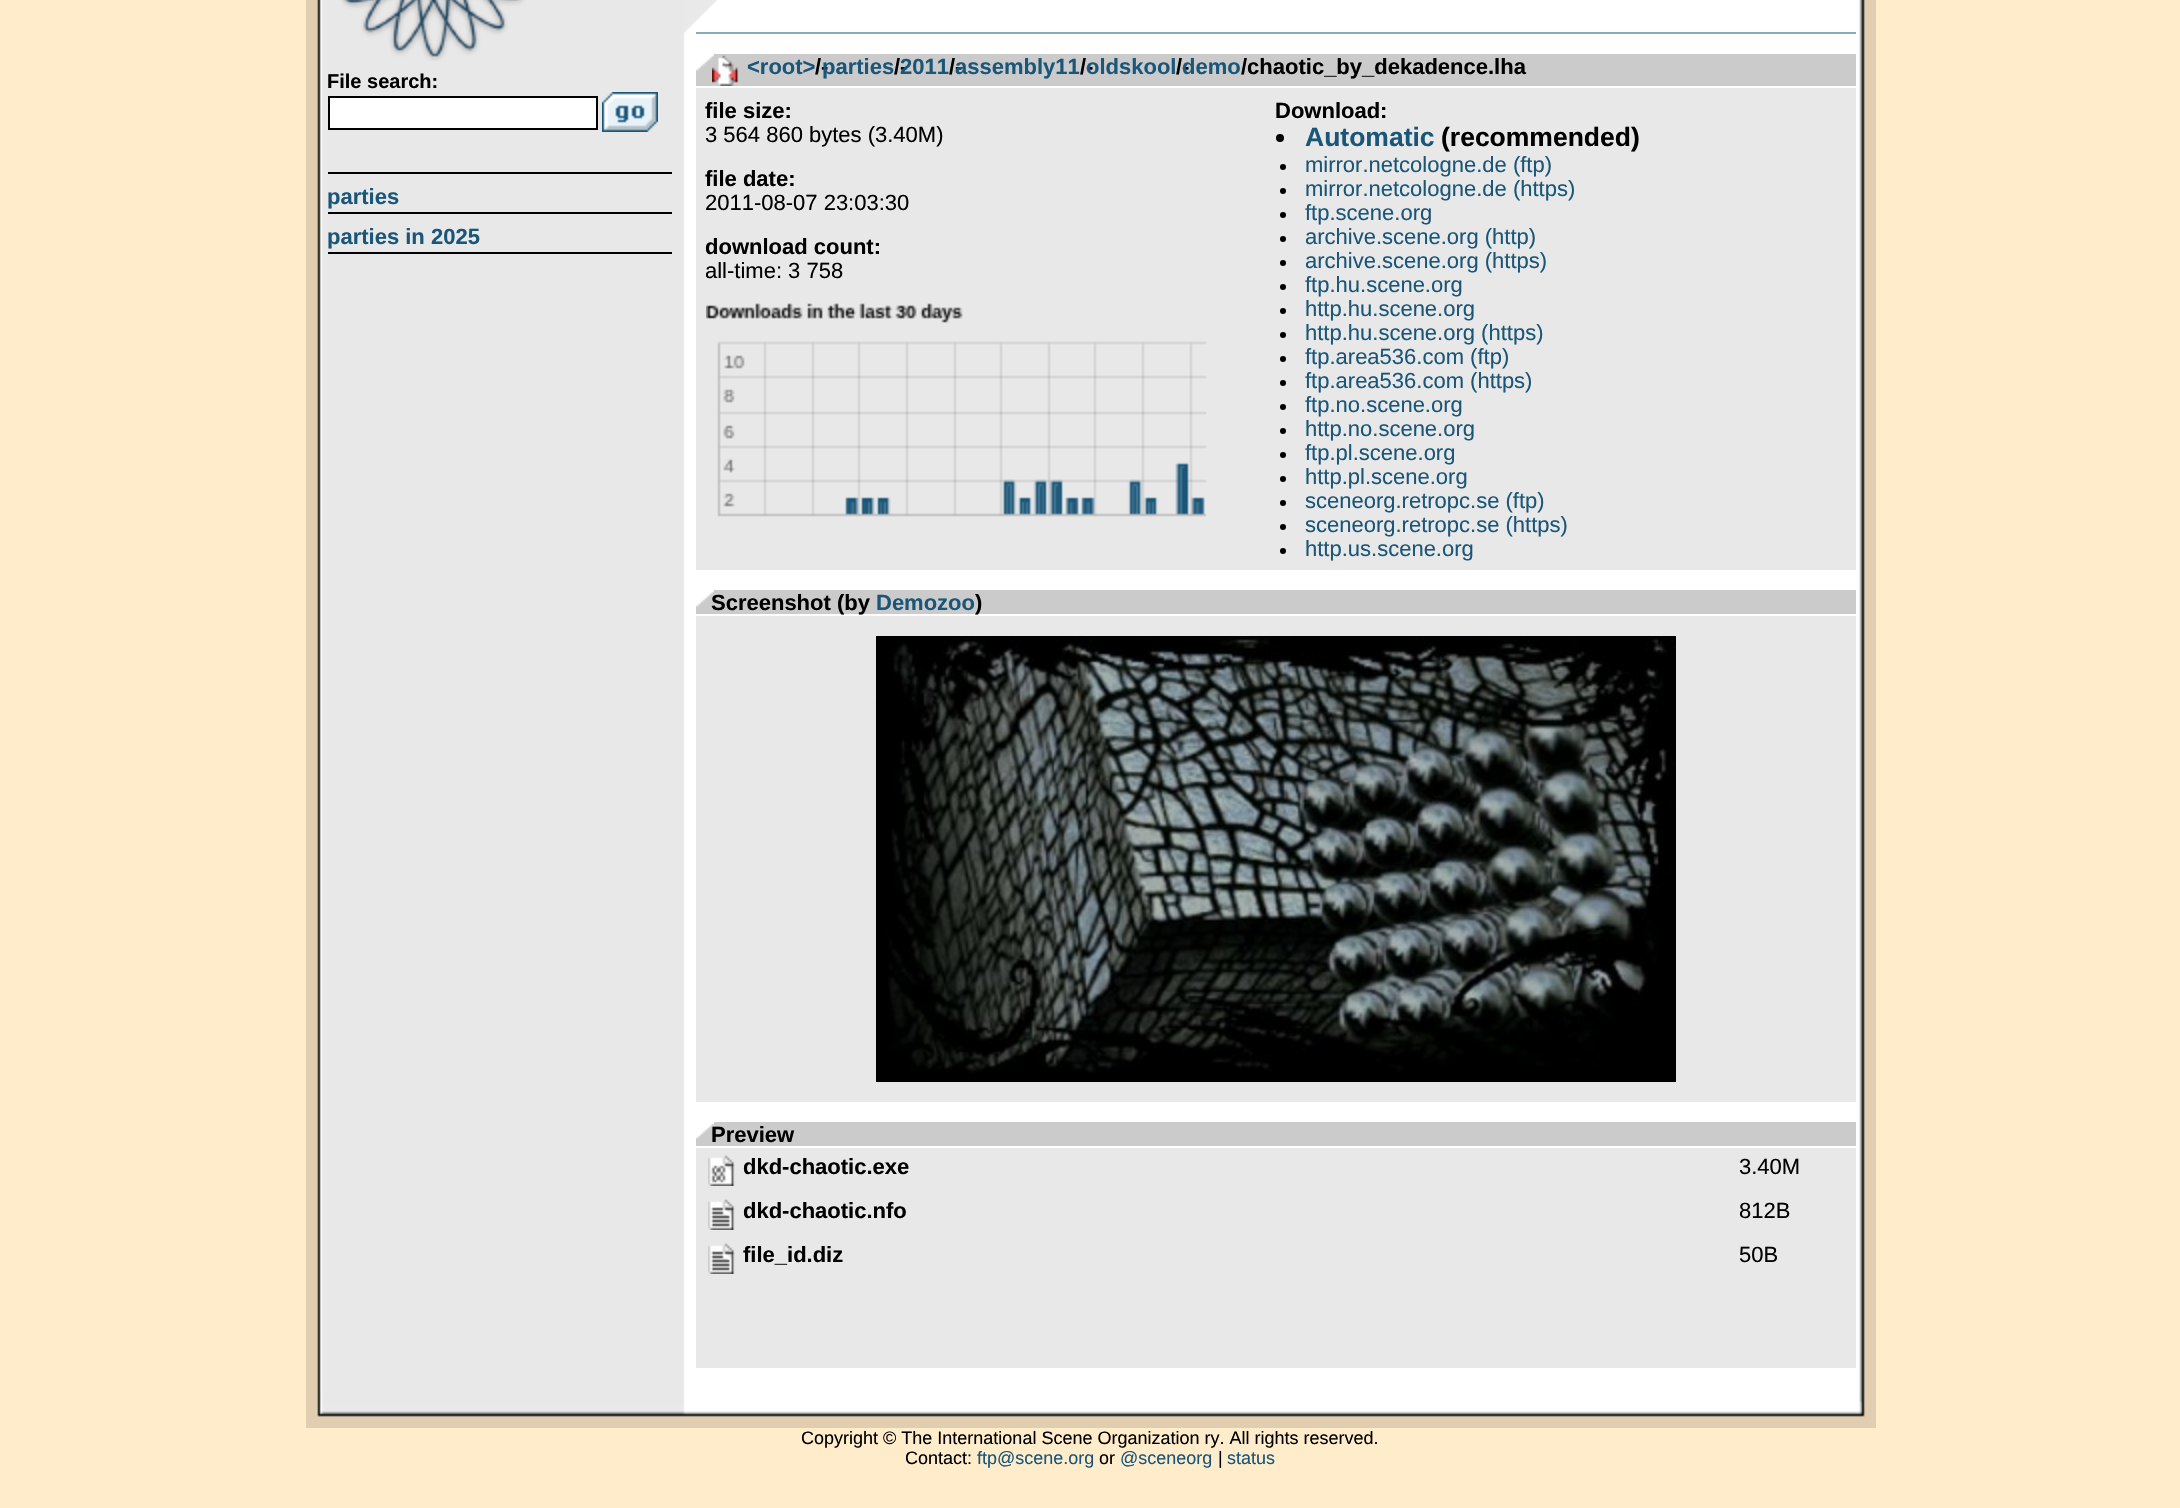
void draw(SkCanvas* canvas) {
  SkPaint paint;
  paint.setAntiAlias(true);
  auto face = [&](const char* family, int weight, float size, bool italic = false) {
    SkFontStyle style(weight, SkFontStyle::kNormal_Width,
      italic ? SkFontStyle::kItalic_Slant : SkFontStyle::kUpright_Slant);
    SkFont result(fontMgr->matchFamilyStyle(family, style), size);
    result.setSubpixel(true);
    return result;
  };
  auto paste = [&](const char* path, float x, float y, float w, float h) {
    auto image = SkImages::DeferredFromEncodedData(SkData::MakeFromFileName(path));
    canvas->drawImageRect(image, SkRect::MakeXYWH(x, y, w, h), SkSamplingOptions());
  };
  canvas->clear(0xffffeccb);
  paste("img/1.png", 306, 0, 1570, 1428);
  paste("img/2.png", 341, 0, 377, 61);
  paint.setColor(0xffffffff);
  canvas->drawRect(SkRect::MakeXYWH(329, 97, 268, 32), paint);
  paint.setStroke(true);
  paint.setStrokeWidth(2);
  paint.setColor(0xff000000);
  canvas->drawRect(SkRect::MakeXYWH(329, 97, 268, 32), paint);
  paste("img/3.png", 602, 92, 56, 40);
  paint.setStroke(false);
  {
    const struct { float x, y, w, h; SkColor color; } items[] = {
      {328, 172, 344, 2, 0xff000000},
      {328, 212, 344, 2, 0xff000000},
      {328, 252, 344, 2, 0xff000000},
      {696, 32, 1160, 2, 0xff8aabbc},
      {696, 88, 1160, 482, 0xffe8e8e8},
      {696, 54, 1160, 32, 0xffcbcbcb},
    };
    for (auto [x, y, w, h, color] : items) {
      paint.setColor(color);
      canvas->drawRect(SkRect::MakeXYWH(x, y, w, h), paint);
    }
  }
  paste("img/4.png", 696, 54, 18, 17);
  paste("img/5.png", 712, 55, 27, 31);
  paste("img/6.png", 706, 303, 500, 214);
  paint.setColor(0xff000000);
  canvas->drawCircle(1280, 138, 4, paint);
  canvas->drawCircle(1283, 167, 3, paint);
  canvas->drawCircle(1283, 191, 3, paint);
  canvas->drawCircle(1283, 215, 3, paint);
  canvas->drawCircle(1283, 239, 3, paint);
  canvas->drawCircle(1283, 263, 3, paint);
  canvas->drawCircle(1283, 287, 3, paint);
  canvas->drawCircle(1283, 311, 3, paint);
  canvas->drawCircle(1283, 335, 3, paint);
  canvas->drawCircle(1283, 359, 3, paint);
  canvas->drawCircle(1283, 383, 3, paint);
  canvas->drawCircle(1283, 407, 3, paint);
  canvas->drawCircle(1283, 431, 3, paint);
  canvas->drawCircle(1283, 455, 3, paint);
  canvas->drawCircle(1283, 479, 3, paint);
  canvas->drawCircle(1283, 503, 3, paint);
  canvas->drawCircle(1283, 527, 3, paint);
  canvas->drawCircle(1283, 551, 3, paint);
  paint.setColor(0xffe8e8e8);
  canvas->drawRect(SkRect::MakeXYWH(696, 616, 1160, 486), paint);
  paint.setColor(0xffcbcbcb);
  canvas->drawRect(SkRect::MakeXYWH(696, 590, 1160, 24), paint);
  paste("img/4.png", 696, 590, 18, 17);
  paste("img/7.png", 876, 636, 800, 446);
  paint.setColor(0xffe8e8e8);
  canvas->drawRect(SkRect::MakeXYWH(696, 1148, 1160, 220), paint);
  paint.setColor(0xffcbcbcb);
  canvas->drawRect(SkRect::MakeXYWH(696, 1122, 1160, 24), paint);
  paste("img/4.png", 696, 1122, 18, 17);
  paste("img/8.png", 708, 1155, 27, 31);
  paste("img/9.png", 708, 1199, 27, 31);
  paste("img/9.png", 708, 1243, 27, 31);
  auto f0 = face("Liberation Sans", 700, 20);
  paint.setColor(0xff000000);
  canvas->drawString("File search:", 327, 88, f0, paint);
  auto f1 = face("Liberation Sans", 700, 22);
  paint.setColor(0xff1a5678);
  canvas->drawString("parties", 327, 204, f1, paint);
  canvas->drawString("parties in 2025", 327, 244, f1, paint);
  paint.setColor(0xff000000);
  canvas->drawString("/-", 815, 74, f1, paint);
  paint.setColor(0xff1a5678);
  canvas->drawString("parties", 822, 74, f1, paint);
  paint.setColor(0xff000000);
  canvas->drawString("/-", 894, 74, f1, paint);
  paint.setColor(0xff1a5678);
  canvas->drawString("2011", 900, 74, f1, paint);
  paint.setColor(0xff000000);
  canvas->drawString("/-", 949, 74, f1, paint);
  paint.setColor(0xff1a5678);
  canvas->drawString("assembly11", 955, 74, f1, paint);
  paint.setColor(0xff000000);
  canvas->drawString("/-", 1080, 74, f1, paint);
  paint.setColor(0xff1a5678);
  canvas->drawString("<root>", 747, 74, f1, paint);
  canvas->drawString("oldskool", 1086, 74, f1, paint);
  paint.setColor(0xff000000);
  canvas->drawString("/-", 1176, 74, f1, paint);
  paint.setColor(0xff1a5678);
  canvas->drawString("demo", 1182, 74, f1, paint);
  paint.setColor(0xff000000);
  canvas->drawString("/chaotic_by_dekadence.lha", 1241, 74, f1, paint);
  canvas->drawString("file size:", 705, 118, f1, paint);
  auto f2 = face("Liberation Sans", 400, 22);
  canvas->drawString("3 564 860 bytes (3.40M)", 705, 142, f2, paint);
  canvas->drawString("file date:", 705, 186, f1, paint);
  canvas->drawString("2011-08-07 23:03:30", 705, 210, f2, paint);
  canvas->drawString("download count:", 705, 254, f1, paint);
  canvas->drawString("all-time: 3 758", 705, 278, f2, paint);
  canvas->drawString("Download:", 1275, 118, f1, paint);
  auto f3 = face("Liberation Sans", 700, 26.5f);
  paint.setColor(0xff1a5678);
  canvas->drawString("Automatic", 1305, 146, f3, paint);
  paint.setColor(0xff000000);
  canvas->drawString("(recommended)", 1441, 146, f3, paint);
  paint.setColor(0xff1a5678);
  {
    const struct { const char* s; float x, y; } items[] = {
      {"mirror.netcologne.de (ftp)", 1305, 172},
      {"mirror.netcologne.de (https)", 1305, 196},
      {"ftp.scene.org", 1305, 220},
      {"archive.scene.org (http)", 1305, 244},
      {"archive.scene.org (https)", 1305, 268},
      {"ftp.hu.scene.org", 1305, 292},
      {"http.hu.scene.org", 1305, 316},
      {"http.hu.scene.org (https)", 1305, 340},
      {"ftp.area536.com (ftp)", 1305, 364},
      {"ftp.area536.com (https)", 1305, 388},
      {"ftp.no.scene.org", 1305, 412},
      {"http.no.scene.org", 1305, 436},
      {"ftp.pl.scene.org", 1305, 460},
      {"http.pl.scene.org", 1305, 484},
      {"sceneorg.retropc.se (ftp)", 1305, 508},
      {"sceneorg.retropc.se (https)", 1305, 532},
      {"http.us.scene.org", 1305, 556},
    };
    for (auto [s, x, y] : items) {
      canvas->drawString(s, x, y, f2, paint);
    }
  }
  paint.setColor(0xff000000);
  canvas->drawString("Screenshot (by", 711, 610, f1, paint);
  paint.setColor(0xff1a5678);
  canvas->drawString("Demozoo", 876, 610, f1, paint);
  paint.setColor(0xff000000);
  {
    const struct { const char* s; float x, y; } items[] = {
      {")", 975, 610},
      {"Preview", 711, 1142},
      {"dkd-chaotic.exe", 743, 1174},
    };
    for (auto [s, x, y] : items) {
      canvas->drawString(s, x, y, f1, paint);
    }
  }
  canvas->drawString("3.40M", 1739, 1174, f2, paint);
  canvas->drawString("dkd-chaotic.nfo", 743, 1218, f1, paint);
  canvas->drawString("812B", 1739, 1218, f2, paint);
  canvas->drawString("file_id.diz", 743, 1262, f1, paint);
  canvas->drawString("50B", 1739, 1262, f2, paint);
  auto f4 = face("Liberation Sans", 400, 18);
  canvas->drawString("Copyright © The International Scene Organization ry. All rights reserved.", 801, 1444, f4, paint);
  canvas->drawString("Contact:", 905, 1464, f4, paint);
  paint.setColor(0xff1a5678);
  canvas->drawString("ftp@scene.org", 977, 1464, f4, paint);
  paint.setColor(0xff000000);
  canvas->drawString("or", 1099, 1464, f4, paint);
  paint.setColor(0xff1a5678);
  canvas->drawString("@sceneorg", 1120, 1464, f4, paint);
  paint.setColor(0xff000000);
  canvas->drawString("|", 1218, 1464, f4, paint);
  paint.setColor(0xff1a5678);
  canvas->drawString("status", 1227, 1464, f4, paint);
}
